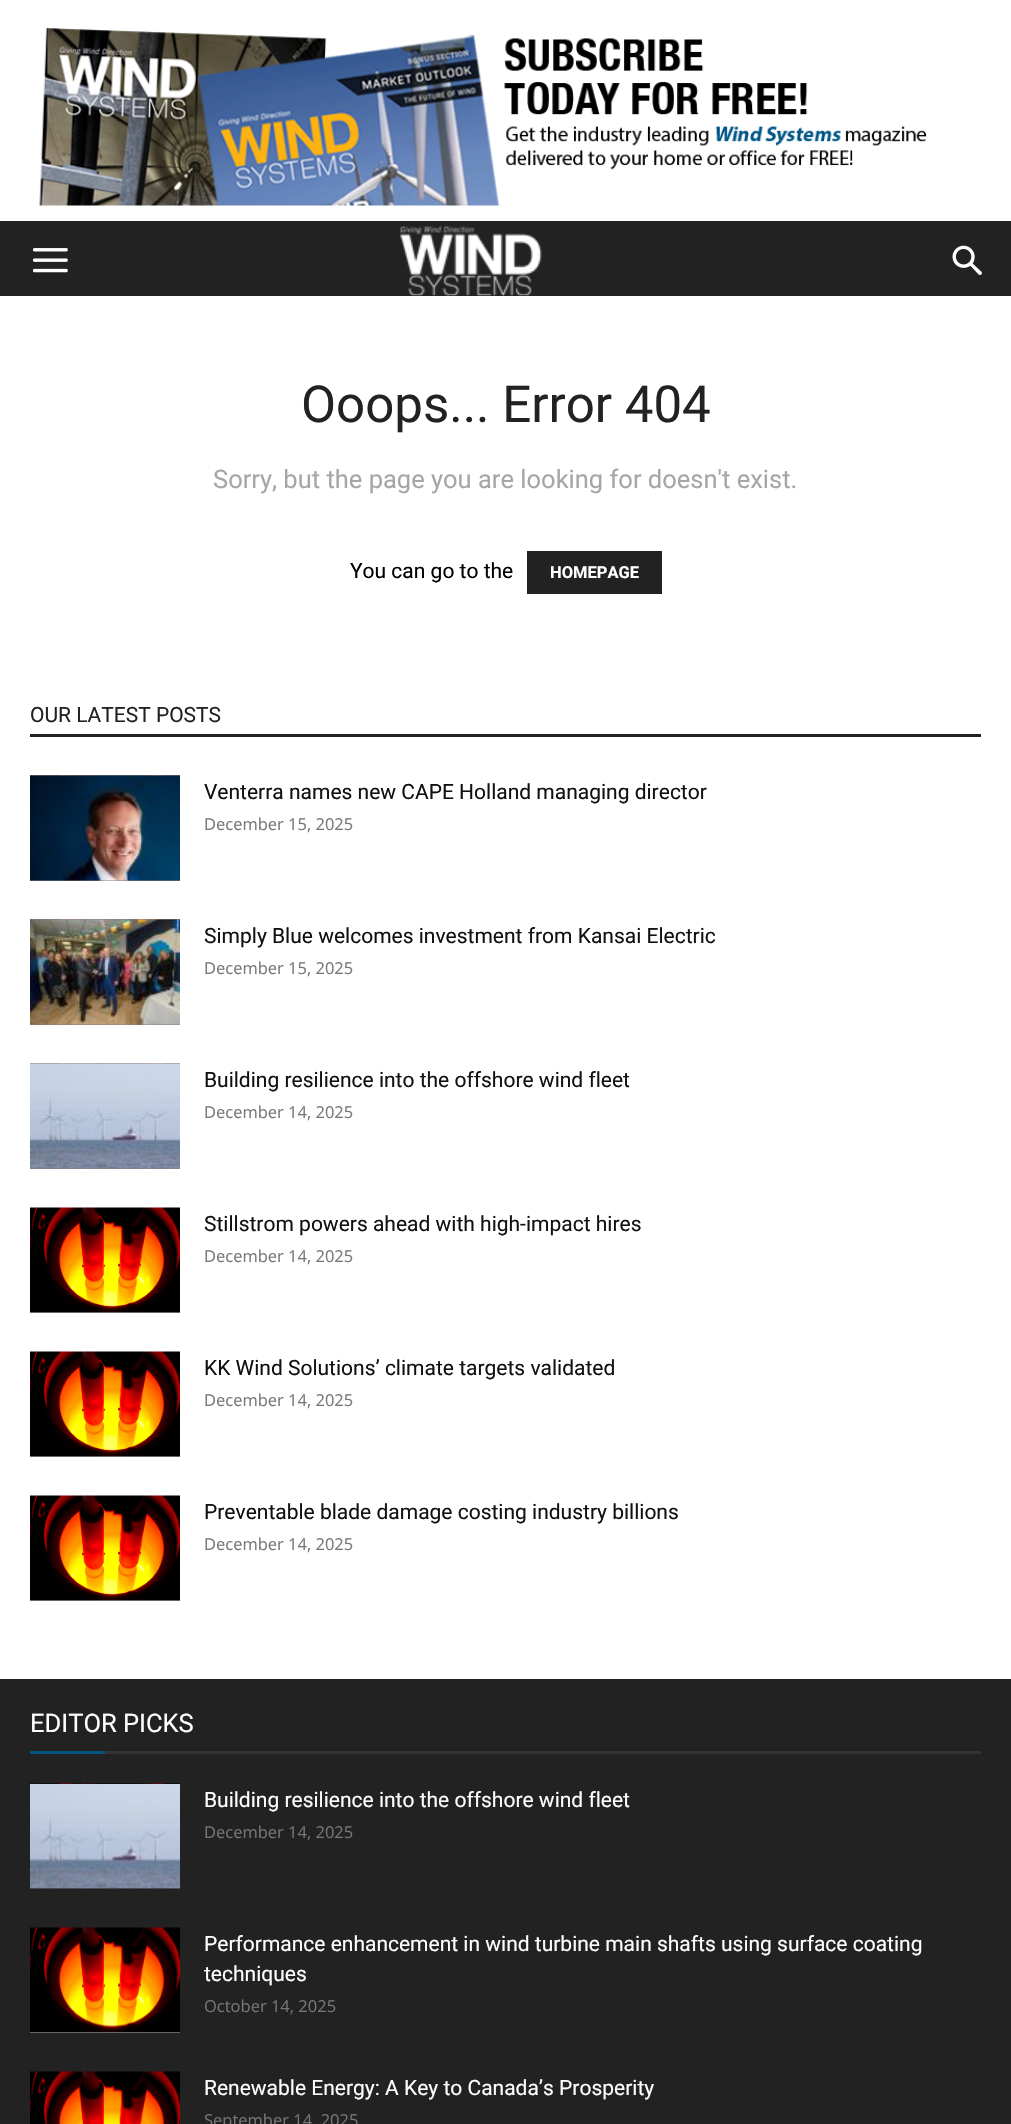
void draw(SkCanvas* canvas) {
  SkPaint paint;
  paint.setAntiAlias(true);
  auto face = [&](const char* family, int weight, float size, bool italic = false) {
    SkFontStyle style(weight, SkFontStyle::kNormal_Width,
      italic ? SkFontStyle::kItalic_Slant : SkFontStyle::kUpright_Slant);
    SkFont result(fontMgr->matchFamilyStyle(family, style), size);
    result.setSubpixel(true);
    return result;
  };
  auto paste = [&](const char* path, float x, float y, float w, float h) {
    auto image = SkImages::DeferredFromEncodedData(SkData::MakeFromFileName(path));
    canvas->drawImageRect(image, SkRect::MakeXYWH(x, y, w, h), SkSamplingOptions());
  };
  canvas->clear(0xffffffff);
  paste("img/1.png", 39, 28, 888, 178);
  paint.setColor(0xff222222);
  canvas->drawRect(SkRect::MakeXYWH(0, 221, 1011, 75), paint);
  paste("img/2.png", 33, 248, 35, 25);
  paste("img/3.png", 400, 226, 142, 70);
  paste("img/4.png", 952, 245, 30, 30);
  canvas->drawRect(SkRect::MakeXYWH(527, 551, 135, 43), paint);
  canvas->drawRect(SkRect::MakeXYWH(30, 734, 951, 3), paint);
  paste("img/5.png", 30, 775, 150, 106);
  paste("img/6.png", 30, 775, 150, 106);
  paste("img/7.png", 30, 919, 150, 106);
  paste("img/8.png", 30, 919, 150, 106);
  paste("img/9.png", 30, 1063, 150, 106);
  paste("img/10.png", 30, 1063, 150, 106);
  paint.setColor(0xffcccccc);
  canvas->drawRect(SkRect::MakeXYWH(30, 1312, 150, 1), paint);
  paste("img/7.png", 30, 1207, 150, 106);
  canvas->drawRect(SkRect::MakeXYWH(30, 1456, 150, 1), paint);
  paste("img/11.png", 30, 1351, 150, 106);
  canvas->drawRect(SkRect::MakeXYWH(30, 1600, 150, 1), paint);
  paste("img/7.png", 30, 1495, 150, 106);
  {
    const struct { float x, y, w, h; SkColor color; } items[] = {
      {0, 1679, 1011, 445, 0xff222222},
      {30, 1751, 75, 3, 0xff005681},
      {105, 1751, 876, 3, 0xff333333},
    };
    for (auto [x, y, w, h, color] : items) {
      paint.setColor(color);
      canvas->drawRect(SkRect::MakeXYWH(x, y, w, h), paint);
    }
  }
  paste("img/12.png", 30, 1783, 150, 106);
  paste("img/13.png", 30, 1784, 150, 105);
  paint.setColor(0xffcccccc);
  canvas->drawRect(SkRect::MakeXYWH(30, 2032, 150, 1), paint);
  paste("img/14.png", 30, 1927, 150, 106);
  paste("img/15.png", 30, 2071, 150, 53);
  auto f0 = face("Roboto", 400, 51);
  paint.setColor(0xff222222);
  canvas->drawString("Ooops... Error 404", 301, 422, f0, paint);
  auto f1 = face("Roboto", 400, 25.5f);
  paint.setColor(0xffa6a6a6);
  canvas->drawString("Sorry, but the page you are looking for doesn't exist.", 213, 488, f1, paint);
  auto f2 = face("Roboto", 400, 21);
  paint.setColor(0xff000000);
  canvas->drawString("You can go to the", 350, 578, f2, paint);
  auto f3 = face("Roboto", 700, 16.5f);
  paint.setColor(0xffffffff);
  canvas->drawString("HOMEPAGE", 550, 578, f3, paint);
  paint.setColor(0xff222222);
  canvas->drawString("OUR LATEST POSTS", 30, 722, f2, paint);
  paint.setColor(0xff111111);
  canvas->drawString("Venterra names new CAPE Holland managing director", 204, 799, f2, paint);
  auto f4 = face("Open Sans", 400, 16.5f);
  paint.setColor(0xff767676);
  canvas->drawString("December 15, 2025", 204, 830, f4, paint);
  paint.setColor(0xff111111);
  canvas->drawString("Simply Blue welcomes investment from Kansai Electric", 204, 943, f2, paint);
  paint.setColor(0xff767676);
  canvas->drawString("December 15, 2025", 204, 974, f4, paint);
  paint.setColor(0xff111111);
  canvas->drawString("Building resilience into the offshore wind fleet", 204, 1087, f2, paint);
  paint.setColor(0xff767676);
  canvas->drawString("December 14, 2025", 204, 1118, f4, paint);
  paint.setColor(0xff111111);
  canvas->drawString("Stillstrom powers ahead with high-impact hires", 204, 1231, f2, paint);
  paint.setColor(0xff767676);
  canvas->drawString("December 14, 2025", 204, 1262, f4, paint);
  paint.setColor(0xff111111);
  canvas->drawString("KK Wind Solutions’ climate targets validated", 204, 1375, f2, paint);
  paint.setColor(0xff767676);
  canvas->drawString("December 14, 2025", 204, 1406, f4, paint);
  paint.setColor(0xff111111);
  canvas->drawString("Preventable blade damage costing industry billions", 204, 1519, f2, paint);
  paint.setColor(0xff767676);
  canvas->drawString("December 14, 2025", 204, 1550, f4, paint);
  paint.setColor(0xffffffff);
  canvas->drawString("EDITOR PICKS", 30, 1732, f1, paint);
  canvas->drawString("Building resilience into the offshore wind fleet", 204, 1807, f2, paint);
  paint.setColor(0xff767676);
  canvas->drawString("December 14, 2025", 204, 1838, f4, paint);
  paint.setColor(0xffffffff);
  canvas->drawString("Performance enhancement in wind turbine main shafts using surface coating", 204, 1951, f2, paint);
  canvas->drawString("techniques", 204, 1981, f2, paint);
  paint.setColor(0xff767676);
  canvas->drawString("October 14, 2025", 204, 2012, f4, paint);
  paint.setColor(0xffffffff);
  canvas->drawString("Renewable Energy: A Key to Canada’s Prosperity", 204, 2095, f2, paint);
  paint.setColor(0xff767676);
  canvas->drawString("September 14, 2025", 204, 2126, f4, paint);
}
